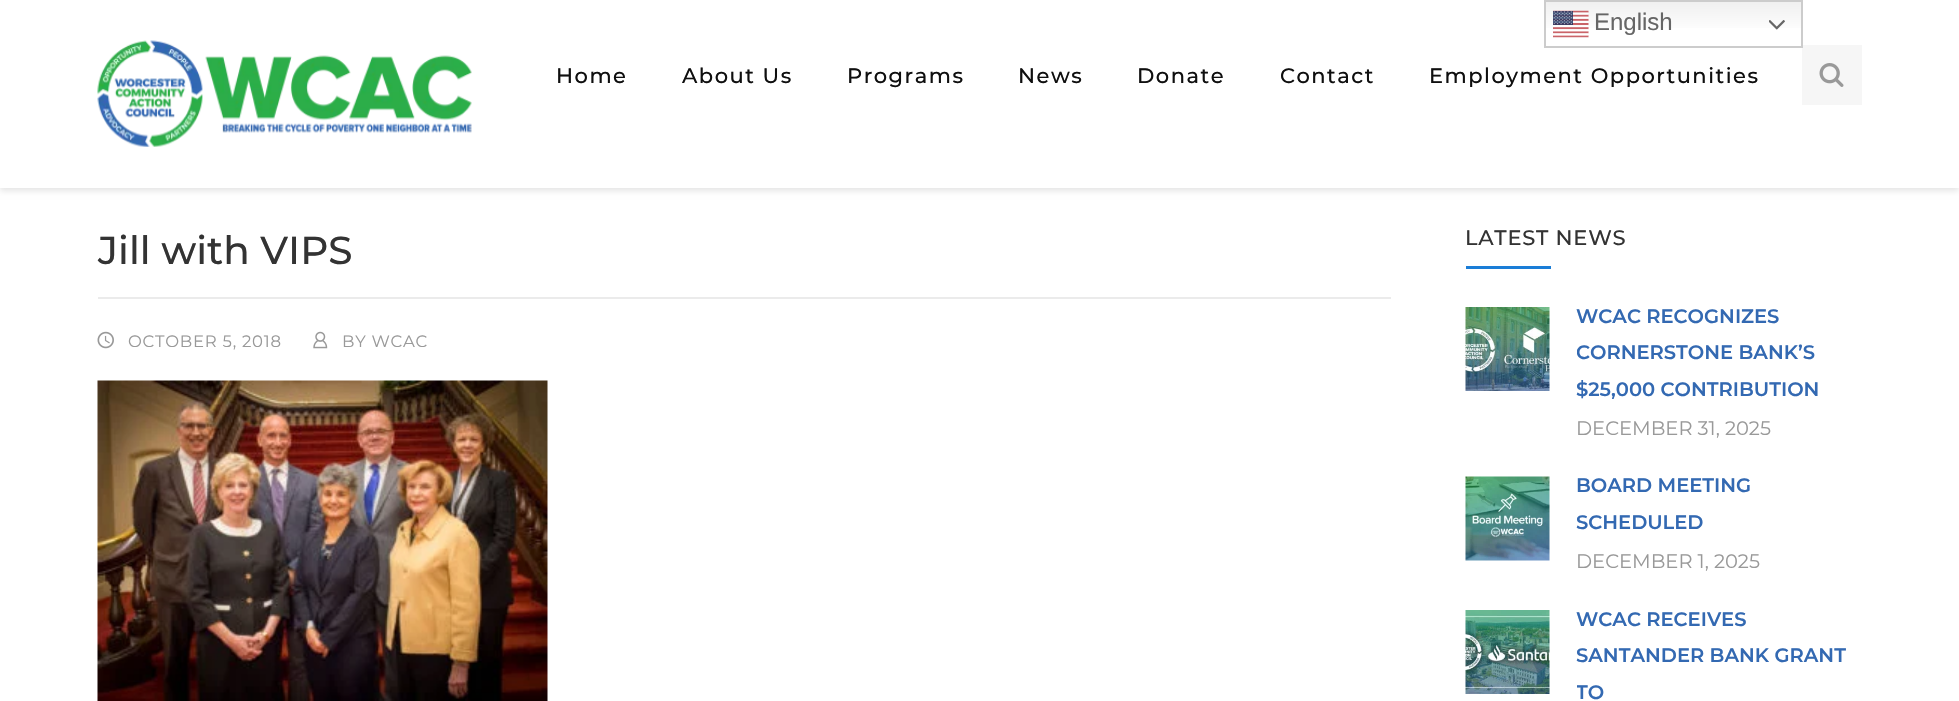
void draw(SkCanvas* canvas) {
  SkPaint paint;
  paint.setAntiAlias(true);
  auto face = [&](const char* family, int weight, float size, bool italic = false) {
    SkFontStyle style(weight, SkFontStyle::kNormal_Width,
      italic ? SkFontStyle::kItalic_Slant : SkFontStyle::kUpright_Slant);
    SkFont result(fontMgr->matchFamilyStyle(family, style), size);
    result.setSubpixel(true);
    return result;
  };
  auto writeSpaced = [&](const char* s, float x, float y, const SkFont& font, const SkPaint& ink, float letter, float word) {
    std::vector<SkGlyphID> glyphs(font.countText(s, strlen(s), SkTextEncoding::kUTF8));
    std::vector<float> xs(glyphs.size());
    font.textToGlyphs(s, strlen(s), SkTextEncoding::kUTF8, glyphs);
    font.getXPos(glyphs, xs, x);
    float extra = 0;
    for (size_t i = 0; i < glyphs.size(); i++) {
      xs[i] += extra;
      extra += letter + word * (glyphs[i] == font.unicharToGlyph(' '));
    }
    canvas->drawTextBlob(SkTextBlob::MakeFromPosHGlyphs(glyphs, xs, y, font), 0, 0, ink);
  };
  auto paste = [&](const char* path, float x, float y, float w, float h) {
    auto image = SkImages::DeferredFromEncodedData(SkData::MakeFromFileName(path));
    canvas->drawImageRect(image, SkRect::MakeXYWH(x, y, w, h), SkSamplingOptions());
  };
  canvas->clear(0xffffffff);
  paint.setColor(0x1a000000);
  paint.setMaskFilter(SkMaskFilter::MakeBlur(kNormal_SkBlurStyle, 3));
  canvas->drawRect(SkRect::MakeXYWH(0, 3, 1959, 188), paint);
  paint.setMaskFilter(nullptr);
  paint.setColor(0xffffffff);
  canvas->drawRect(SkRect::MakeXYWH(0, 0, 1959, 188), paint);
  {
    const SkColor colors[] = {0xffefefef, 0xffffffff};
    const float stops[] = {0, 0.7f};
    const SkPoint ends[] = {{1673, 0}, {1673, 48}};
    paint.setShader(SkGradientShader::MakeLinear(ends, colors, stops, 2, SkTileMode::kClamp));
    paint.setAlpha(255);
  }
  canvas->drawRect(SkRect::MakeXYWH(1546, 2, 255, 26), paint);
  paint.setShader(nullptr);
  paint.setColor(0xfff6f6f6);
  canvas->drawRect(SkRect::MakeXYWH(1802, 45, 60, 60), paint);
  paint.setStroke(true);
  paint.setStrokeWidth(2);
  paint.setColor(0xffcccccc);
  canvas->drawRect(SkRect::MakeXYWH(1545, 1, 257, 46), paint);
  paste("img/1.png", 1553, 10, 36, 28);
  paste("img/2.png", 1769, 20, 16, 10);
  paste("img/3.png", 97, 40, 375, 107);
  paste("img/4.png", 1819, 63, 25, 24);
  paint.setStroke(false);
  paint.setColor(0xffebebeb);
  canvas->drawRect(SkRect::MakeXYWH(98, 297, 1293, 2), paint);
  paste("img/5.png", 97, 331, 17, 18);
  paste("img/6.png", 313, 331, 15, 18);
  paste("img/7.png", 97, 380, 451, 321);
  paint.setColor(0xff1a7dd7);
  canvas->drawRect(SkRect::MakeXYWH(1466, 266, 85, 3), paint);
  paste("img/8.png", 1465, 307, 85, 84);
  paste("img/9.png", 1465, 476, 85, 85);
  paste("img/10.png", 1465, 610, 85, 84);
  auto f0 = face("Liberation Sans", 400, 24);
  paint.setColor(0xff666666);
  canvas->drawString("English", 1594, 30, f0, paint);
  auto f1 = face("Montserrat", 500, 21);
  paint.setColor(0xff0f0f0f);
  {
    const struct { const char* s; float x, y; } items[] = {
      {"Home", 556, 83},
      {"About Us", 682, 83},
      {"Programs", 847, 83},
      {"News", 1018, 83},
      {"Donate", 1137, 83},
      {"Contact", 1280, 83},
      {"Employment Opportunities", 1429, 83},
    };
    for (auto [s, x, y] : items) {
      writeSpaced(s, x, y, f1, paint, 1.5f, 0);
    }
  }
  auto f2 = face("Montserrat", 500, 39);
  paint.setColor(0xff333333);
  canvas->drawString("Jill with VIPS", 98, 264, f2, paint);
  auto f3 = face("Montserrat", 400, 16.5f);
  paint.setColor(0xff999999);
  writeSpaced("OCTOBER 5, 2018", 128, 347, f3, paint, 0.75f, 0);
  writeSpaced("BY WCAC", 342, 347, f3, paint, 0.75f, 0);
  paint.setColor(0xff333333);
  writeSpaced("LATEST NEWS", 1465, 245, f1, paint, 0.75f, 0);
  auto f4 = face("Montserrat", 600, 19.5f);
  paint.setColor(0xff3369b2);
  canvas->drawString("WCAC RECOGNIZES", 1576, 323, f4, paint);
  canvas->save();
  canvas->clipRect(SkRect::MakeXYWH(1577, 308, 285, 138));
  canvas->drawString("CORNERSTONE BANK’S", 1576, 359, f4, paint);
  canvas->restore();
  canvas->drawString("$25,000 CONTRIBUTION", 1576, 396, f4, paint);
  auto f5 = face("Montserrat", 400, 19.5f);
  paint.setColor(0xff999999);
  canvas->drawString("DECEMBER 31, 2025", 1576, 435, f5, paint);
  paint.setColor(0xff3369b2);
  canvas->drawString("BOARD MEETING", 1576, 492, f4, paint);
  canvas->drawString("SCHEDULED", 1576, 529, f4, paint);
  paint.setColor(0xff999999);
  canvas->drawString("DECEMBER 1, 2025", 1576, 568, f5, paint);
  paint.setColor(0xff3369b2);
  canvas->drawString("WCAC RECEIVES", 1576, 626, f4, paint);
  canvas->drawString("SANTANDER BANK GRANT", 1576, 662, f4, paint);
  canvas->save();
  canvas->clipRect(SkRect::MakeXYWH(1577, 611, 285, 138));
  canvas->drawString("TO", 1576, 699, f4, paint);
  canvas->restore();
}
